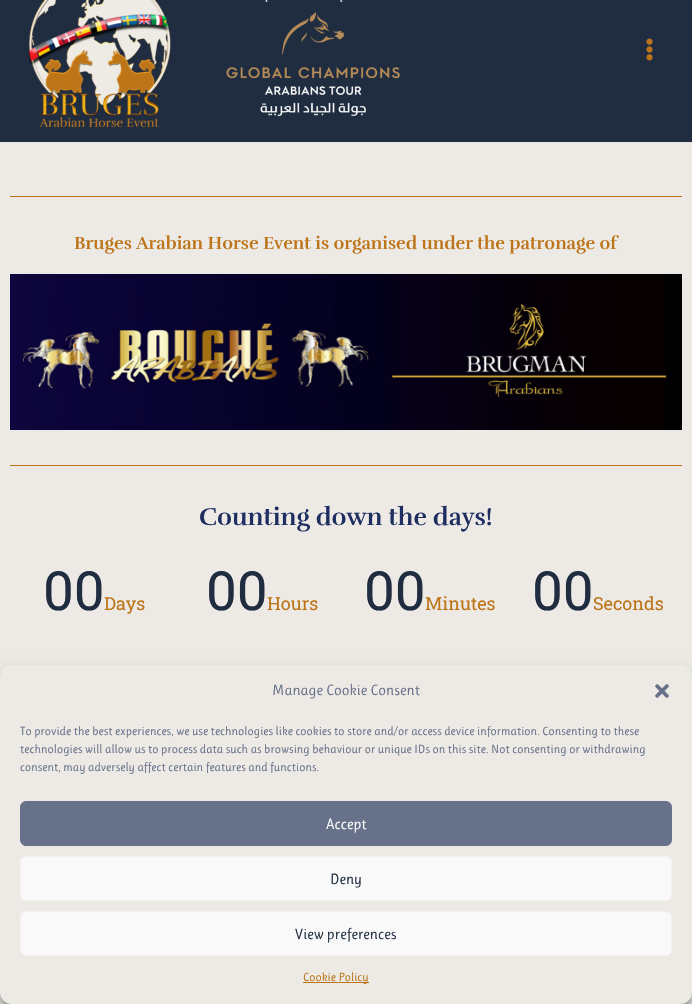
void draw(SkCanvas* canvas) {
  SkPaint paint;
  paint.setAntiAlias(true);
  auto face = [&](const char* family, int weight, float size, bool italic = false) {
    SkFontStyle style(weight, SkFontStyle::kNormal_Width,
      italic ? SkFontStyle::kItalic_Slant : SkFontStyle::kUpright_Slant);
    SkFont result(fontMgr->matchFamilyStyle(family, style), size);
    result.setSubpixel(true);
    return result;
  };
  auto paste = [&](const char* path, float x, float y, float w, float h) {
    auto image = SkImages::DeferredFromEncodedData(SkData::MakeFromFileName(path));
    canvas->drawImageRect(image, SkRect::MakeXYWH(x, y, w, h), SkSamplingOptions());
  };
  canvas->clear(0xffedeae5);
  paint.setColor(0xff202d40);
  canvas->drawRect(SkRect::MakeXYWH(0, 0, 692, 142), paint);
  paint.setColor(0xffe2e2e2);
  canvas->drawRect(SkRect::MakeXYWH(0, 142, 692, 1), paint);
  paste("img/1.png", 28, 0, 143, 128);
  paste("img/2.png", 226, 0, 174, 117);
  paste("img/3.png", 646, 38, 7, 23);
  paint.setColor(0xffbd7418);
  canvas->drawRect(SkRect::MakeXYWH(10, 196, 672, 1), paint);
  paste("img/4.png", 10, 274, 672, 156);
  canvas->drawRect(SkRect::MakeXYWH(10, 465, 672, 1), paint);
  paint.setColor(0x3b000000);
  paint.setMaskFilter(SkMaskFilter::MakeBlur(kNormal_SkBlurStyle, 3));
  canvas->drawRoundRect(SkRect::MakeXYWH(0, 671, 692, 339), 12, 12, paint);
  paint.setMaskFilter(nullptr);
  paint.setColor(0x30000000);
  paint.setMaskFilter(SkMaskFilter::MakeBlur(kNormal_SkBlurStyle, 10));
  canvas->drawRoundRect(SkRect::MakeXYWH(0, 675, 692, 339), 12, 12, paint);
  paint.setMaskFilter(nullptr);
  paint.setColor(0xffedeae5);
  canvas->drawRoundRect(SkRect::MakeXYWH(0, 665, 692, 339), 12, 12, paint);
  paste("img/5.png", 655, 684, 14, 14);
  paint.setColor(0xff677189);
  canvas->drawRoundRect(SkRect::MakeXYWH(20.5f, 801.5f, 651, 44), 5.5f, 5.5f, paint);
  paint.setStroke(true);
  paint.setStrokeWidth(1);
  canvas->drawRoundRect(SkRect::MakeXYWH(20.5f, 801.5f, 651, 44), 5.5f, 5.5f, paint);
  paint.setStroke(false);
  paint.setColor(0xfff9f9f9);
  canvas->drawRoundRect(SkRect::MakeXYWH(20.5f, 856.5f, 651, 44), 5.5f, 5.5f, paint);
  paint.setStroke(true);
  paint.setColor(0xfff2f2f2);
  canvas->drawRoundRect(SkRect::MakeXYWH(20.5f, 856.5f, 651, 44), 5.5f, 5.5f, paint);
  paint.setStroke(false);
  paint.setColor(0xfff9f9f9);
  canvas->drawRoundRect(SkRect::MakeXYWH(20.5f, 911.5f, 651, 44), 5.5f, 5.5f, paint);
  paint.setStroke(true);
  paint.setColor(0xfff2f2f2);
  canvas->drawRoundRect(SkRect::MakeXYWH(20.5f, 911.5f, 651, 44), 5.5f, 5.5f, paint);
  paint.setStroke(false);
  paint.setColor(0xffbd7418);
  canvas->drawRect(SkRect::MakeXYWH(303, 982, 66, 1), paint);
  auto f0 = face("Rufina", 700, 18);
  canvas->drawString("Bruges Arabian Horse Event is organised under the patronage of", 74, 249, f0, paint);
  auto f1 = face("Rufina", 700, 25);
  paint.setColor(0xff1e2e61);
  canvas->drawString("Counting down the days!", 199, 525, f1, paint);
  auto f2 = face("Roboto Slab", 400, 54);
  paint.setColor(0xff202d40);
  canvas->drawString("00", 43, 610, f2, paint);
  auto f3 = face("Roboto Slab", 400, 18);
  paint.setColor(0xffbd7418);
  canvas->drawString("Days", 104, 610, f3, paint);
  paint.setColor(0xff202d40);
  canvas->drawString("00", 206, 610, f2, paint);
  paint.setColor(0xffbd7418);
  canvas->drawString("Hours", 267, 610, f3, paint);
  paint.setColor(0xff202d40);
  canvas->drawString("00", 364, 610, f2, paint);
  paint.setColor(0xffbd7418);
  canvas->drawString("Minutes", 425, 610, f3, paint);
  paint.setColor(0xff202d40);
  canvas->drawString("00", 532, 610, f2, paint);
  paint.setColor(0xffbd7418);
  canvas->drawString("Seconds", 593, 610, f3, paint);
  auto f4 = face("Ruluko", 400, 15);
  paint.setColor(0xff677189);
  canvas->drawString("Manage Cookie Consent", 272, 695, f4, paint);
  auto f5 = face("Ruluko", 400, 12);
  {
    const struct { const char* s; float x, y; } items[] = {
      {"To provide the best experiences, we use technologies like cookies to store and/or access device information. Consenting to these", 20, 735},
      {"technologies will allow us to process data such as browsing behaviour or unique IDs on this site. Not consenting or withdrawing", 20, 753},
      {"consent, may adversely affect certain features and functions.", 20, 771},
    };
    for (auto [s, x, y] : items) {
      canvas->drawString(s, x, y, f5, paint);
    }
  }
  paint.setColor(0xffffffff);
  canvas->drawString("Accept", 326, 829, f4, paint);
  paint.setColor(0xff202d40);
  canvas->drawString("Deny", 330, 884, f4, paint);
  canvas->drawString("View preferences", 295, 939, f4, paint);
  paint.setColor(0xffbd7418);
  canvas->drawString("Cookie Policy", 303, 981, f5, paint);
}
